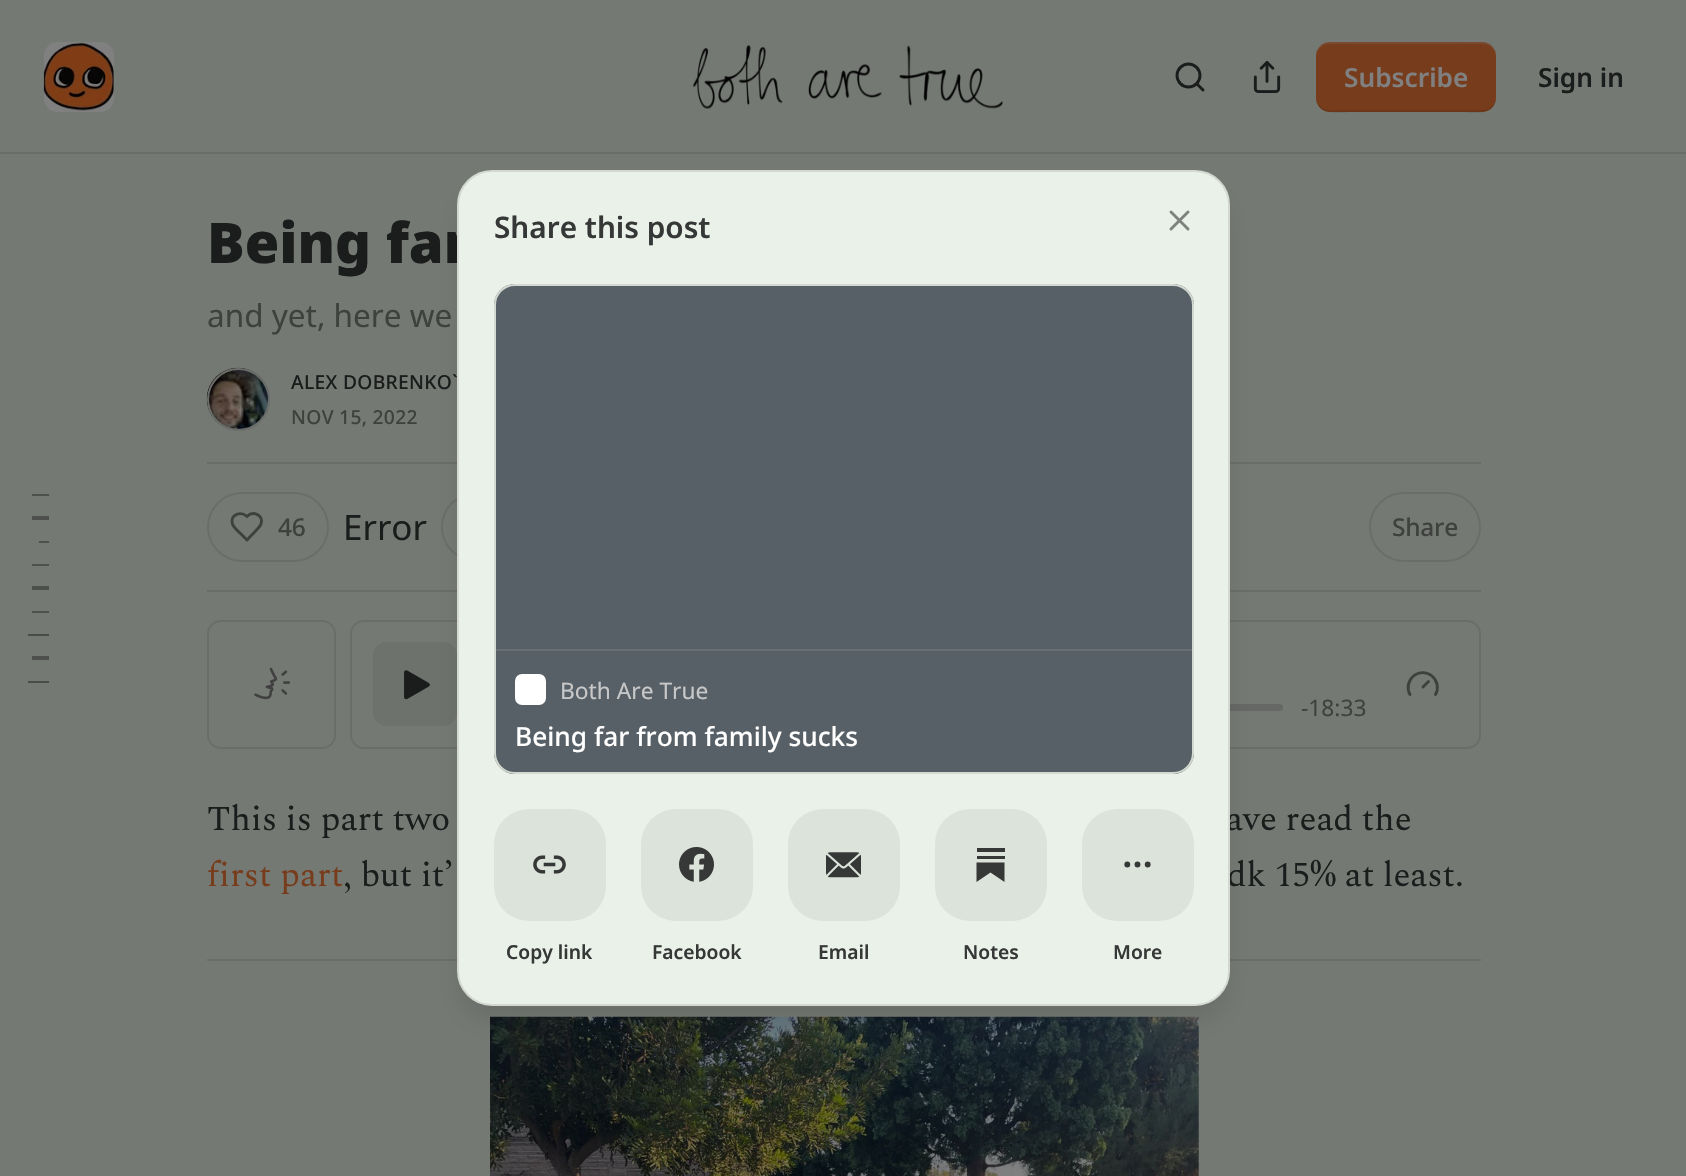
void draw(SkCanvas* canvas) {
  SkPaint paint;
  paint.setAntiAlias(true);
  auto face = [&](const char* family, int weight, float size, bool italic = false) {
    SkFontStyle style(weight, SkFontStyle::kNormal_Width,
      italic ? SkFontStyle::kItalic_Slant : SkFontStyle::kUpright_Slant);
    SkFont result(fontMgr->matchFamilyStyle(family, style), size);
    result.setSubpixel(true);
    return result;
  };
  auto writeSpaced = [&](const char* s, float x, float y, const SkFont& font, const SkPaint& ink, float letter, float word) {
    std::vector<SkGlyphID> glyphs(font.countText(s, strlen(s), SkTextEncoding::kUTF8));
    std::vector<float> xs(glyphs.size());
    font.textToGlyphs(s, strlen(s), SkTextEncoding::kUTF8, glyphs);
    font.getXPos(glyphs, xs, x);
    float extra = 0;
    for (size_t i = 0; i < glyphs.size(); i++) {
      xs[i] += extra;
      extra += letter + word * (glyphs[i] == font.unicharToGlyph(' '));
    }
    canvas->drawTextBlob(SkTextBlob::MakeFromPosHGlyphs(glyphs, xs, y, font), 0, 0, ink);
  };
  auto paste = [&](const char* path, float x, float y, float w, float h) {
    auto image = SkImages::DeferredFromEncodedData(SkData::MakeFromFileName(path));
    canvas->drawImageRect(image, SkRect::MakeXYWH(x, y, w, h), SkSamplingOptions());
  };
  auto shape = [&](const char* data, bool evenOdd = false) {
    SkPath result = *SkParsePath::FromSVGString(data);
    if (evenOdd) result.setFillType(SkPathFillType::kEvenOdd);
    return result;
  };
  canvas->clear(0xff757974);
  paint.setColor(0xff6a6d69);
  canvas->drawRect(SkRect::MakeXYWH(0, 152, 1686, 2), paint);
  paint.setColor(0xff808080);
  canvas->drawRoundRect(SkRect::MakeXYWH(44, 42, 70, 70), 14, 14, paint);
  paste("img/1.png", 43, 42, 71, 69);
  paste("img/2.png", 693, 45, 310, 64);
  paint.setStroke(true);
  paint.setStrokeWidth(2.9f);
  paint.setColor(0xff1b1c1c);
  canvas->drawCircle(1188.5f, 75.5f, 11.5f, paint);
  paint.setStrokeCap(SkPaint::kRound_Cap);
  paint.setStrokeJoin(SkPaint::kRound_Join);
  canvas->drawPath(shape("M1203 90L1197 84"), paint);
  paste("img/3.png", 1253, 61, 28, 32);
  paint.setStroke(false);
  paint.setColor(0xff773c1b);
  canvas->drawRoundRect(SkRect::MakeXYWH(1316, 42, 180, 70), 14, 14, paint);
  paint.setColor(0x1a000000);
  canvas->drawPath(shape("M1316 96C1316 118 1340 112 1355 112H1457C1472 112 1496 118 1496 96C1496 104 1490 110 1482 110H1330C1322 110 1316 104 1316 96Z"), paint);
  paint.setColor(0x33808080);
  canvas->drawPath(shape("M1330 44H1482C1490 44 1496 50 1496 58C1496 36 1472 42 1457 42H1355C1340 42 1316 36 1316 58C1316 50 1322 44 1330 44Z"), paint);
  paint.setStroke(true);
  paint.setStrokeWidth(2);
  paint.setStrokeCap(SkPaint::kButt_Cap);
  paint.setStrokeJoin(SkPaint::kMiter_Join);
  paint.setColor(0xff6a6d69);
  canvas->drawCircle(238.5f, 399.5f, 30.5f, paint);
  paste("img/4.png", 206, 367, 64, 64);
  canvas->drawCircle(238.5f, 399.5f, 30.5f, paint);
  paint.setStroke(false);
  canvas->drawRect(SkRect::MakeXYWH(207, 462, 1274, 2), paint);
  canvas->drawRect(SkRect::MakeXYWH(207, 590, 1274, 2), paint);
  paint.setStroke(true);
  canvas->drawRoundRect(SkRect::MakeXYWH(208, 493, 120, 68), 34, 34, paint);
  paint.setStrokeWidth(2.9f);
  paint.setStrokeCap(SkPaint::kRound_Cap);
  paint.setStrokeJoin(SkPaint::kRound_Join);
  paint.setColor(0xff3f413f);
  canvas->drawPath(shape("M257 529.5C258.5 528 260 526 261 524C264 515 253 510.5 247 516.5C240.5 510.5 229.5 515 232.5 524C233.5 527.5 237.5 530.5 240 533L247 540Z"), paint);
  paint.setStrokeWidth(2);
  paint.setStrokeCap(SkPaint::kButt_Cap);
  paint.setStrokeJoin(SkPaint::kMiter_Join);
  paint.setColor(0xff6a6d69);
  canvas->drawRoundRect(SkRect::MakeXYWH(442, 493, 119, 68), 34, 34, paint);
  canvas->drawRoundRect(SkRect::MakeXYWH(1370, 493, 110, 68), 34, 34, paint);
  canvas->drawRoundRect(SkRect::MakeXYWH(208, 621, 127, 127), 13, 13, paint);
  paste("img/5.png", 254, 667, 36, 33);
  canvas->drawRoundRect(SkRect::MakeXYWH(351, 621, 1129, 127), 13, 13, paint);
  paint.setStroke(false);
  paint.setColor(0xff6e726d);
  canvas->drawRoundRect(SkRect::MakeXYWH(373, 642, 84, 84), 14, 14, paint);
  paste("img/6.png", 404, 670, 26, 30);
  paint.setStroke(true);
  paint.setStrokeWidth(2.9f);
  paint.setStrokeCap(SkPaint::kRound_Cap);
  paint.setStrokeJoin(SkPaint::kRound_Join);
  paint.setColor(0xff3f413f);
  canvas->drawPath(shape("M1423 687L1428.5 681.5M1410 694.5C1406.5 688.5 1408 680.5 1413.5 676C1419 671.5 1426.5 671.5 1432 676C1437.5 680.5 1439 688.5 1435.5 694.5"), paint);
  paint.setStroke(false);
  paint.setColor(0xff656865);
  canvas->drawRoundRect(SkRect::MakeXYWH(562, 704, 721, 7), 3.5f, 3.5f, paint);
  {
    const struct { float x, y, w, h; SkColor color; } items[] = {
      {32, 494, 17, 2, 0xff4d504d},
      {32, 516, 17, 4, 0xff4d504d},
      {39, 541, 10, 2, 0xff4d504d},
      {32, 564, 17, 2, 0xff4d504d},
      {32, 586, 17, 4, 0xff4d504d},
      {32, 611, 17, 2, 0xff4d504d},
      {28, 634, 21, 2, 0xff4a4c4a},
      {32, 656, 17, 4, 0xff4d504d},
      {28, 681, 21, 2, 0xff4a4c4a},
      {207, 959, 1274, 2, 0xff6a6d69},
    };
    for (auto [x, y, w, h, color] : items) {
      paint.setColor(color);
      canvas->drawRect(SkRect::MakeXYWH(x, y, w, h), paint);
    }
  }
  paste("img/7.png", 490, 1016, 709, 160);
  paint.setColor(0x1a000000);
  paint.setMaskFilter(SkMaskFilter::MakeBlur(kNormal_SkBlurStyle, 13));
  canvas->drawRoundRect(SkRect::MakeXYWH(462, 193, 763, 826), 30, 30, paint);
  paint.setMaskFilter(nullptr);
  auto f0 = face("Noto Sans", 600, 26.25f);
  paint.setColor(0xff808080);
  canvas->drawString("Subscribe", 1344, 87, f0, paint);
  paint.setColor(0xff1b1c1c);
  canvas->drawString("Sign in", 1538, 87, f0, paint);
  auto f1 = face("Noto Sans", 900, 56);
  canvas->drawString("Being far", 207, 263, f1, paint);
  auto f2 = face("Noto Sans", 400, 31.5f);
  paint.setColor(0xff3f413f);
  canvas->drawString("and yet, here we", 207, 327, f2, paint);
  auto f3 = face("Noto Sans", 500, 19.25f);
  paint.setColor(0xff1b1c1c);
  writeSpaced("ALEX DOBRENKO`", 291, 389, f3, paint, 0.3f, 0);
  paint.setColor(0xff3f413f);
  writeSpaced("NOV 15, 2022", 291, 424, f3, paint, 0.3f, 0);
  auto f4 = face("Noto Sans", 500, 24.5f);
  writeSpaced("46", 278, 536, f4, paint, -0.25f, 0);
  auto f5 = face("Noto Sans", 400, 35);
  paint.setColor(0xff1b1c1c);
  canvas->drawString("Error", 343, 540, f5, paint);
  paint.setColor(0xff3f413f);
  writeSpaced("Share", 1392, 536, f4, paint, -0.25f, 0);
  auto f6 = face("Noto Sans", 400, 22.75f);
  canvas->drawString("-18:33", 1301, 716, f6, paint);
  auto f7 = face("Spectral", 400, 35);
  paint.setColor(0xff1b1c1c);
  canvas->drawString("This is part two", 207, 830, f7, paint);
  canvas->drawString("ave read the", 1226, 830, f7, paint);
  paint.setColor(0xff773c1b);
  canvas->drawString("first part", 207, 886, f7, paint);
  paint.setColor(0xff1b1c1c);
  canvas->drawString(", but it’", 343, 886, f7, paint);
  canvas->drawString("dk 15% at least.", 1227, 886, f7, paint);
  paint.setColor(0xffeaf1e8);
  canvas->drawRoundRect(SkRect::MakeXYWH(458, 171, 771, 834), 34, 34, paint);
  paint.setStroke(true);
  paint.setStrokeWidth(2);
  paint.setStrokeCap(SkPaint::kButt_Cap);
  paint.setStrokeJoin(SkPaint::kMiter_Join);
  paint.setColor(0xffd3d9d1);
  canvas->drawRoundRect(SkRect::MakeXYWH(458, 171, 771, 834), 34, 34, paint);
  auto f8 = face("Noto Sans", 600, 29.75f);
  paint.setStroke(false);
  paint.setColor(0xff363737);
  canvas->drawString("Share this post", 494, 238, f8, paint);
  paint.setStroke(true);
  paint.setStrokeWidth(2.9f);
  paint.setStrokeCap(SkPaint::kRound_Cap);
  paint.setStrokeJoin(SkPaint::kRound_Join);
  paint.setColor(0xff7e817e);
  canvas->drawPath(shape("M1188 212L1171 229M1171 212L1188 229"), paint);
  paint.setStroke(false);
  paint.setColor(0xffdce3da);
  canvas->drawRoundRect(SkRect::MakeXYWH(494, 284, 700, 490), 21, 21, paint);
  paint.setColor(0xbf2b343f);
  canvas->drawRoundRect(SkRect::MakeXYWH(494, 284, 700, 490), 21, 21, paint);
  paint.setColor(0xff687075);
  canvas->drawRect(SkRect::MakeXYWH(494, 649, 700, 2), paint);
  paint.setColor(0xffffffff);
  canvas->drawRoundRect(SkRect::MakeXYWH(515, 674, 31, 31), 7, 7, paint);
  paint.setStroke(true);
  paint.setStrokeWidth(2);
  paint.setStrokeCap(SkPaint::kButt_Cap);
  paint.setStrokeJoin(SkPaint::kMiter_Join);
  paint.setColor(0xffd3d9d1);
  canvas->drawRoundRect(SkRect::MakeXYWH(495, 285, 698, 488), 20, 20, paint);
  paint.setStroke(false);
  paint.setColor(0xffc8c8c8);
  canvas->drawString("Both Are True", 560, 699, f6, paint);
  auto f9 = face("Noto Sans", 500, 26.25f);
  paint.setColor(0xffffffff);
  canvas->drawString("Being far from family sucks", 515, 746, f9, paint);
  paint.setColor(0xffdce3da);
  canvas->drawRoundRect(SkRect::MakeXYWH(494, 809, 112, 112), 35, 35, paint);
  paste("img/8.png", 533, 855, 33, 19);
  auto f10 = face("Noto Sans", 600, 19.25f);
  paint.setColor(0xff363737);
  canvas->drawString("Copy link", 506, 959, f10, paint);
  paint.setColor(0xffdce3da);
  canvas->drawRoundRect(SkRect::MakeXYWH(641, 809, 112, 112), 35, 35, paint);
  paste("img/9.png", 679, 847, 35, 35);
  paint.setColor(0xff363737);
  canvas->drawString("Facebook", 652, 959, f10, paint);
  paint.setColor(0xffdce3da);
  canvas->drawRoundRect(SkRect::MakeXYWH(788, 809, 112, 112), 35, 35, paint);
  paste("img/10.png", 826, 852, 35, 26);
  paint.setColor(0xff363737);
  canvas->drawString("Email", 818, 959, f10, paint);
  paint.setColor(0xffdce3da);
  canvas->drawRoundRect(SkRect::MakeXYWH(935, 809, 112, 112), 35, 35, paint);
  paint.setColor(0xff363737);
  canvas->drawRect(SkRect::MakeXYWH(977, 848, 28, 4), paint);
  canvas->drawRect(SkRect::MakeXYWH(977, 856, 28, 3), paint);
  canvas->drawPath(shape("M976.5 862.5V882L990.5 872.5L1004.5 882V862.5Z"), paint);
  canvas->drawString("Notes", 963, 959, f10, paint);
  paint.setColor(0xffdce3da);
  canvas->drawRoundRect(SkRect::MakeXYWH(1082, 809, 112, 112), 35, 35, paint);
  paint.setStroke(true);
  paint.setStrokeWidth(2.9f);
  paint.setColor(0xff363737);
  canvas->drawCircle(1137.5f, 864.5f, 1.5f, paint);
  canvas->drawCircle(1147.7f, 864.5f, 1.5f, paint);
  canvas->drawCircle(1127.3f, 864.5f, 1.5f, paint);
  paint.setStroke(false);
  canvas->drawString("More", 1113, 959, f10, paint);
}
